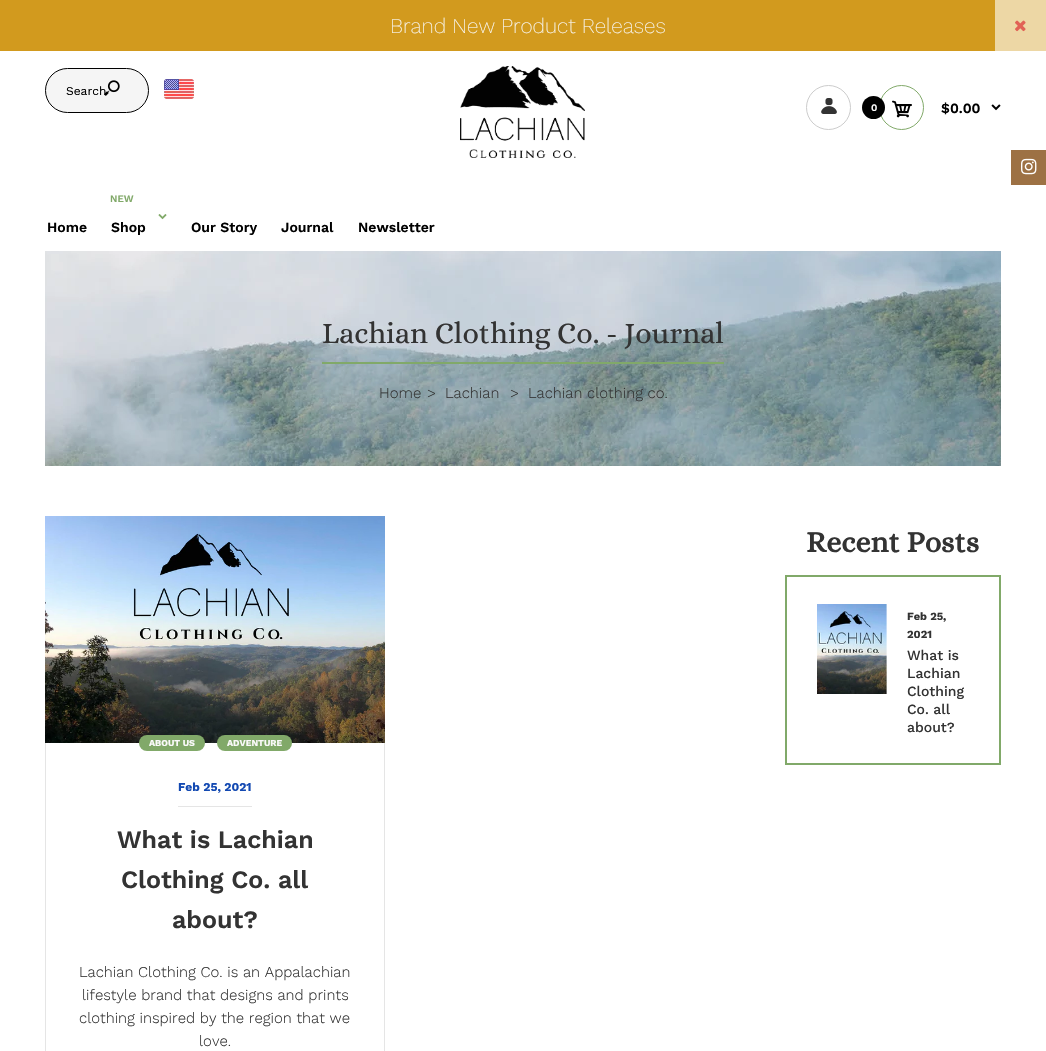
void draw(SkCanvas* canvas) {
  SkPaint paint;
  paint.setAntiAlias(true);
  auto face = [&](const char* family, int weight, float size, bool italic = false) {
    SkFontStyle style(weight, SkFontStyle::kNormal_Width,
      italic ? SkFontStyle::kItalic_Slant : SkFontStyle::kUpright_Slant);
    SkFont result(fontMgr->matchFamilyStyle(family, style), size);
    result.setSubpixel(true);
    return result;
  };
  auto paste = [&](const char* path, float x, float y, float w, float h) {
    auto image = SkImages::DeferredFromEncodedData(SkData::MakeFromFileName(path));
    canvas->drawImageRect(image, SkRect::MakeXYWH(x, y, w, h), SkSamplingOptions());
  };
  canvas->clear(0xffffffff);
  paint.setColor(0xffd29a1e);
  canvas->drawRect(SkRect::MakeXYWH(0, 0, 995, 51), paint);
  paint.setColor(0xffedd7a5);
  canvas->drawRect(SkRect::MakeXYWH(995, 0, 51, 51), paint);
  paste("img/1.png", 1015, 20, 11, 12);
  paint.setColor(0xfff5f5f5);
  canvas->drawRoundRect(SkRect::MakeXYWH(45.5f, 68.5f, 103, 44), 22, 22, paint);
  paint.setStroke(true);
  paint.setStrokeWidth(1);
  paint.setColor(0xff000000);
  canvas->drawRoundRect(SkRect::MakeXYWH(45.5f, 68.5f, 103, 44), 22, 22, paint);
  paste("img/3.png", 164, 79, 30, 20);
  paste("img/4.png", 460, 66, 125, 92);
  paint.setColor(0xffcccccc);
  canvas->drawCircle(828.5f, 107.5f, 22, paint);
  paste("img/5.png", 821, 98, 16, 16);
  paint.setColor(0xff81a969);
  canvas->drawCircle(901.5f, 107.5f, 22, paint);
  paint.setStroke(false);
  paint.setColor(0xff000000);
  canvas->drawCircle(873.5f, 107.5f, 11.5f, paint);
  paste("img/6.png", 892, 100, 20, 18);
  paste("img/7.png", 991, 104, 10, 7);
  paste("img/8.png", 158, 214, 9, 6);
  paste("img/9.png", 45, 251, 956, 215);
  paint.setColor(0xff81a969);
  canvas->drawRect(SkRect::MakeXYWH(322, 362, 402, 2), paint);
  paint.setStroke(true);
  paint.setStrokeWidth(2);
  canvas->drawRect(SkRect::MakeXYWH(786, 576, 214, 188), paint);
  paste("img/10.png", 817, 604, 70, 90);
  paint.setStrokeWidth(1);
  paint.setColor(0xffe5e5e5);
  canvas->drawRect(SkRect::MakeXYWH(45.5f, 516.5f, 339, 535), paint);
  paste("img/11.png", 45, 516, 340, 227);
  paint.setStroke(false);
  paint.setColor(0xff81a969);
  canvas->drawRoundRect(SkRect::MakeXYWH(139, 735, 66, 16), 8, 8, paint);
  canvas->drawRoundRect(SkRect::MakeXYWH(217, 735, 75, 16), 8, 8, paint);
  paint.setColor(0xffe5e5e5);
  canvas->drawRect(SkRect::MakeXYWH(178, 806, 74, 1), paint);
  paint.setColor(0xff9d7144);
  canvas->drawRect(SkRect::MakeXYWH(1011, 150, 35, 35), paint);
  paste("img/12.png", 1021, 158, 16, 17);
  auto f0 = face("Work Sans", 200, 21);
  paint.setColor(0xfffafafa);
  canvas->drawString("Brand New Product Releases", 390, 33, f0, paint);
  auto f1 = face("Work Sans", 400, 12);
  paint.setColor(0xff000000);
  canvas->drawString("Search", 66, 95, f1, paint);
  paste("img/2.png", 104, 80, 16, 16);
  auto f2 = face("Work Sans", 600, 10);
  paint.setColor(0xfffafafa);
  canvas->drawString("0", 871, 111, f2, paint);
  auto f3 = face("Work Sans", 600, 14);
  paint.setColor(0xff000000);
  canvas->drawString("$0.00", 941, 113, f3, paint);
  canvas->drawString("Home", 47, 232, f3, paint);
  paint.setColor(0xff81a969);
  canvas->drawString("NEW", 110, 202, f2, paint);
  paint.setColor(0xff000000);
  {
    const struct { const char* s; float x, y; } items[] = {
      {"Shop", 111, 232},
      {"Our Story", 191, 232},
      {"Journal", 281, 232},
      {"Newsletter", 358, 232},
    };
    for (auto [s, x, y] : items) {
      canvas->drawString(s, x, y, f3, paint);
    }
  }
  auto f4 = face("Alice", 400, 30);
  paint.setColor(0xff333333);
  canvas->drawString("Lachian Clothing Co. - Journal", 322, 343, f4, paint);
  auto f5 = face("Work Sans", 300, 15);
  {
    const struct { const char* s; float x, y; } items[] = {
      {"Home", 379, 398},
      {">", 427, 398},
      {"Lachian", 445, 398},
      {">", 510, 398},
      {"Lachian clothing co.", 528, 398},
    };
    for (auto [s, x, y] : items) {
      canvas->drawString(s, x, y, f5, paint);
    }
  }
  auto f6 = face("Alice", 700, 30);
  canvas->drawString("Recent Posts", 806, 552, f6, paint);
  auto f7 = face("Work Sans", 700, 11);
  canvas->drawString("Feb 25,", 907, 620, f7, paint);
  canvas->drawString("2021", 907, 638, f7, paint);
  auto f8 = face("Work Sans", 500, 14);
  {
    const struct { const char* s; float x, y; } items[] = {
      {"What is", 907, 660},
      {"Lachian", 907, 678},
      {"Clothing", 907, 696},
      {"Co. all", 907, 714},
      {"about?", 907, 732},
    };
    for (auto [s, x, y] : items) {
      canvas->drawString(s, x, y, f8, paint);
    }
  }
  auto f9 = face("Work Sans", 700, 9);
  paint.setColor(0xfffafafa);
  canvas->drawString("ABOUT US", 149, 746, f9, paint);
  canvas->drawString("ADVENTURE", 227, 746, f9, paint);
  auto f10 = face("Work Sans", 700, 12);
  paint.setColor(0xff1349b2);
  canvas->drawString("Feb 25, 2021", 178, 791, f10, paint);
  auto f11 = face("Work Sans", 600, 25);
  paint.setColor(0xff333333);
  {
    const struct { const char* s; float x, y; } items[] = {
      {"What is Lachian", 117, 848},
      {"Clothing Co. all", 121, 888},
      {"about?", 172, 928},
    };
    for (auto [s, x, y] : items) {
      canvas->drawString(s, x, y, f11, paint);
    }
  }
  {
    const struct { const char* s; float x, y; } items[] = {
      {"Lachian Clothing Co. is an Appalachian", 79, 977},
      {"lifestyle brand that designs and prints", 82, 1000},
      {"clothing inspired by the region that we", 79, 1023},
      {"love.", 199, 1046},
    };
    for (auto [s, x, y] : items) {
      canvas->drawString(s, x, y, f5, paint);
    }
  }
}
